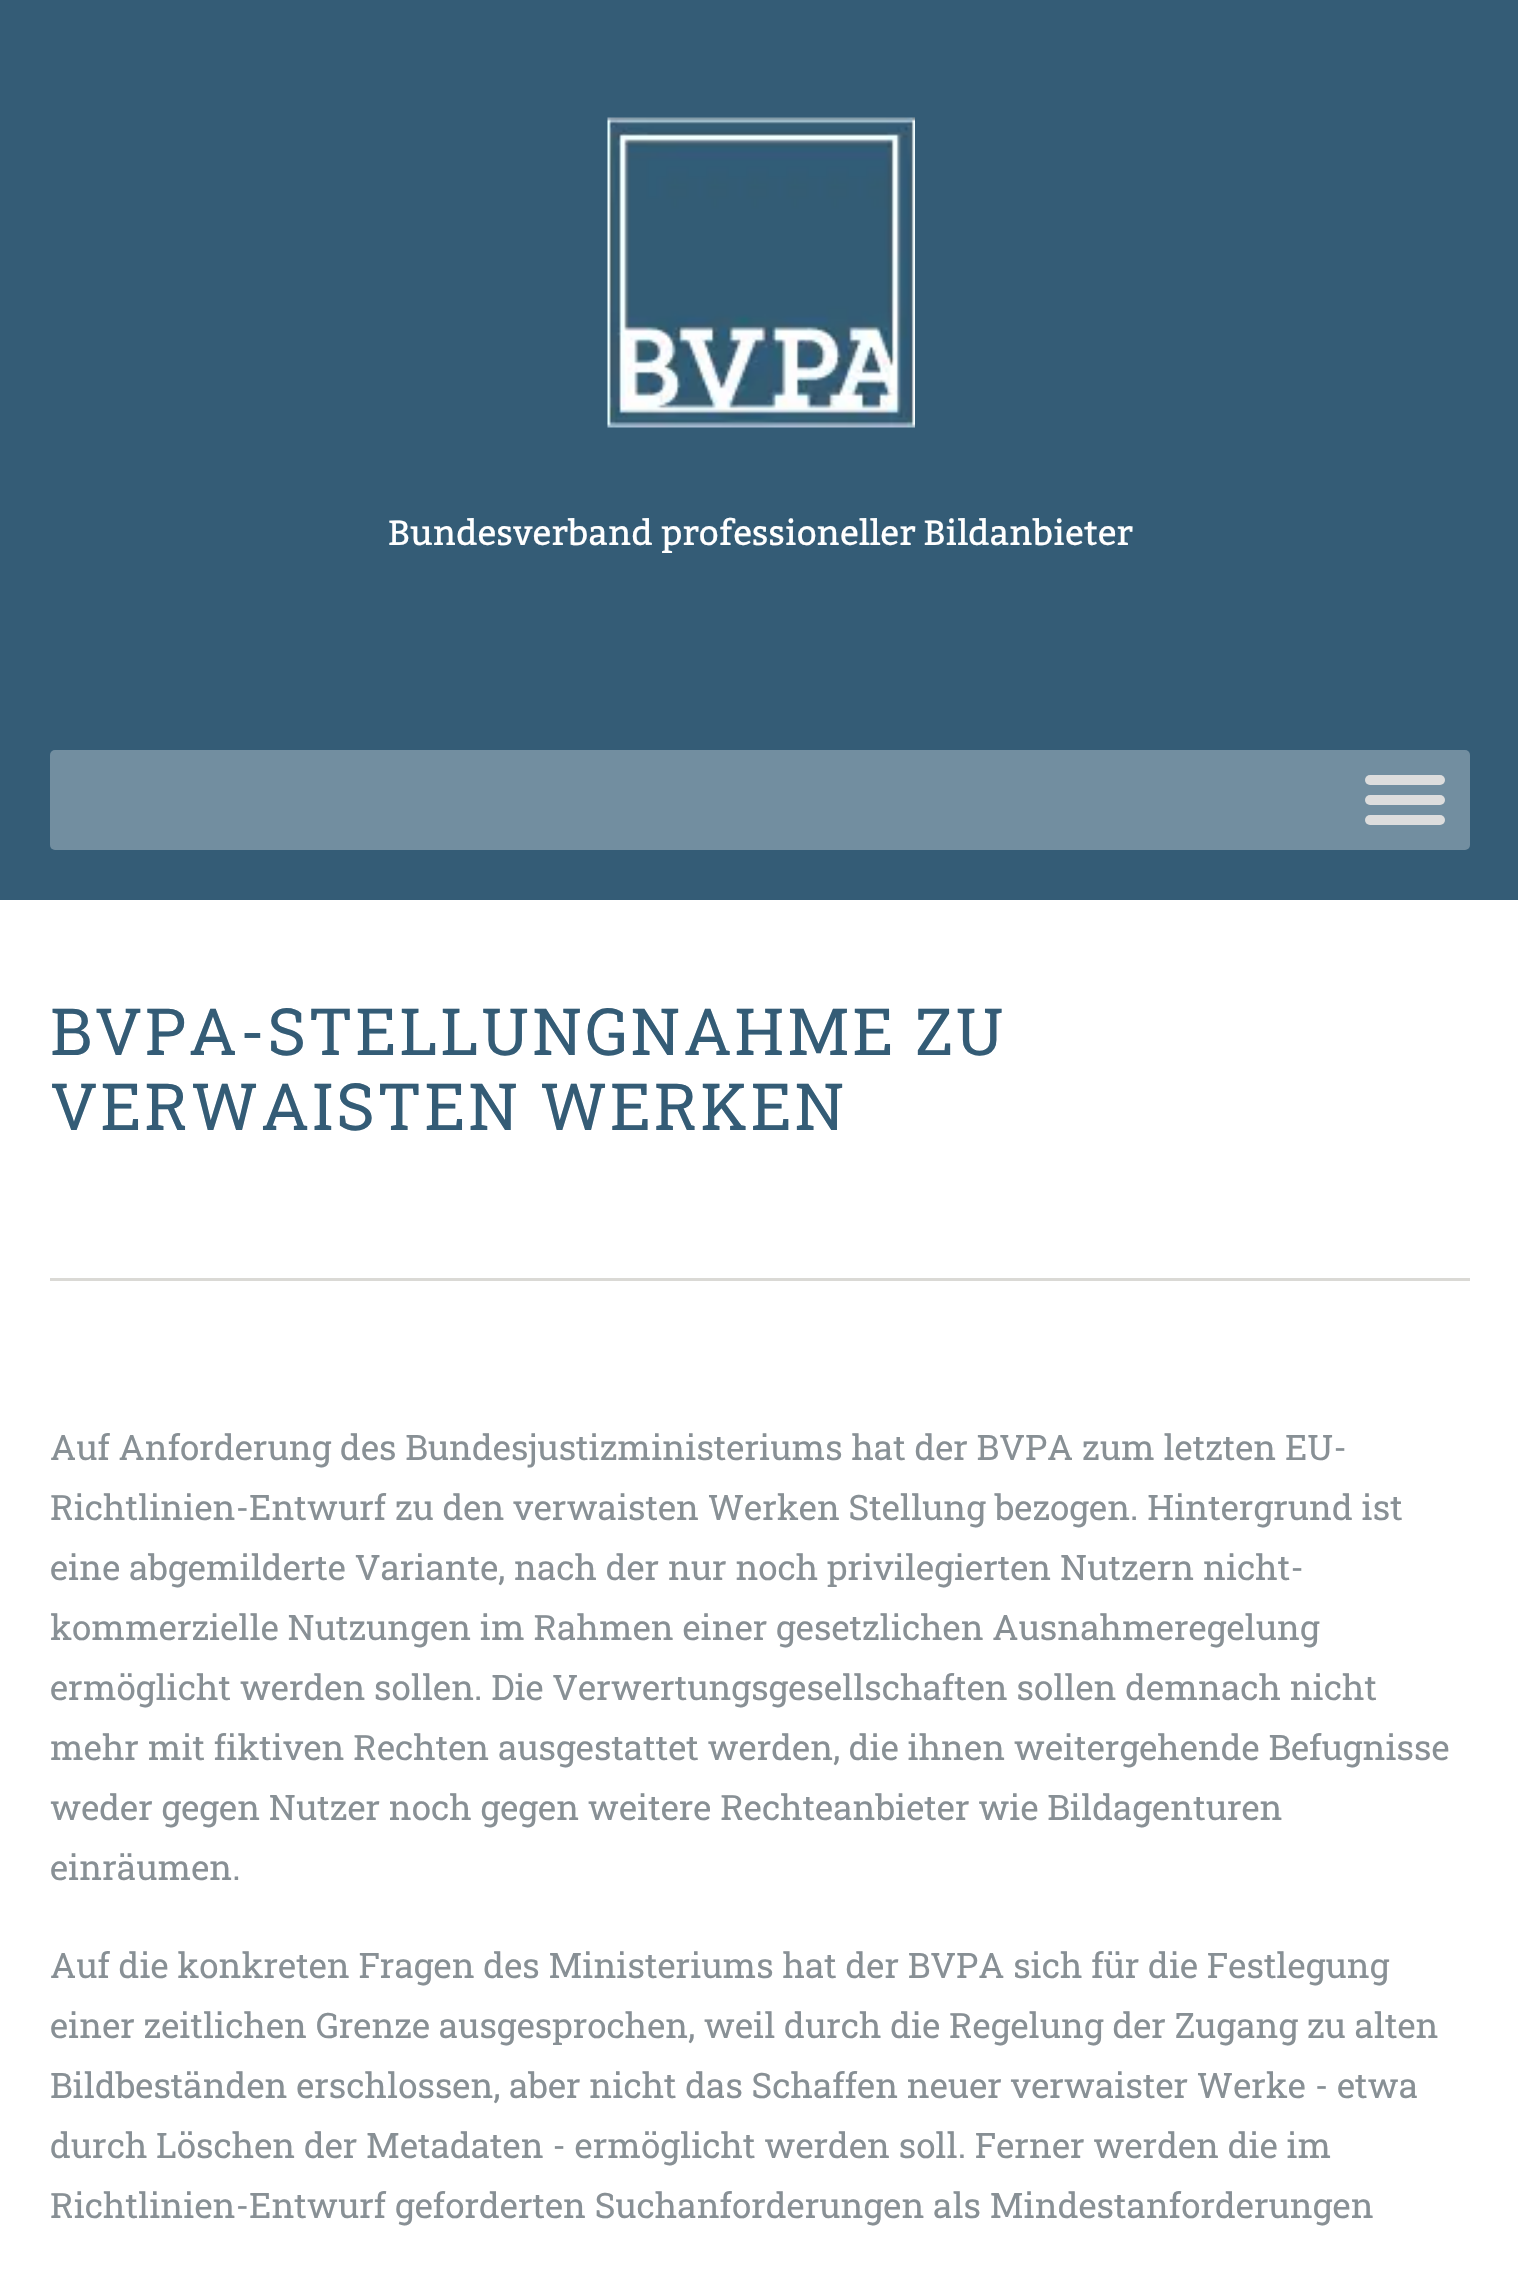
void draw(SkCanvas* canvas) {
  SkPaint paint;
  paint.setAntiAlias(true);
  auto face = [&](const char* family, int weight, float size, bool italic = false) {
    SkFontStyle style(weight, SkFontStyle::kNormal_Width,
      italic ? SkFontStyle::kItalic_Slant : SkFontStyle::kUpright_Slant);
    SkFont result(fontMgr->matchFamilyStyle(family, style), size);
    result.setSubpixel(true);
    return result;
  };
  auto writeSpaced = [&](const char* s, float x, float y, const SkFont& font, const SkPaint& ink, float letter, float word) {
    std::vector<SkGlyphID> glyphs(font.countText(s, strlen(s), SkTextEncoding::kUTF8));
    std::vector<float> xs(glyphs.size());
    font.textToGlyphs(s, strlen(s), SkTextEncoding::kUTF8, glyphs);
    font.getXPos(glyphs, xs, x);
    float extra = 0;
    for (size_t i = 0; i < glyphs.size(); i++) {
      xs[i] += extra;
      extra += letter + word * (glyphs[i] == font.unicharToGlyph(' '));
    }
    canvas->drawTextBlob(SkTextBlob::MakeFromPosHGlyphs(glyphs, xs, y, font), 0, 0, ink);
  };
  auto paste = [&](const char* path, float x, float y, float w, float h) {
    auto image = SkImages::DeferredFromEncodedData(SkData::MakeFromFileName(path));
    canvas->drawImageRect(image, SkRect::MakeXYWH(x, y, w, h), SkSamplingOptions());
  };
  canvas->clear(0xffffffff);
  paint.setColor(0xff345c76);
  canvas->drawRect(SkRect::MakeXYWH(0, 0, 1518, 900), paint);
  paste("img/1.png", 607, 117, 308, 311);
  paint.setColor(0xff728ea0);
  canvas->drawRoundRect(SkRect::MakeXYWH(50, 750, 1420, 100), 5, 5, paint);
  paint.setColor(0xffdddddd);
  canvas->drawRoundRect(SkRect::MakeXYWH(1365, 775, 80, 10), 5, 5, paint);
  canvas->drawRoundRect(SkRect::MakeXYWH(1365, 795, 80, 10), 5, 5, paint);
  canvas->drawRoundRect(SkRect::MakeXYWH(1365, 815, 80, 10), 5, 5, paint);
  paint.setColor(0xffdad9d5);
  canvas->drawRect(SkRect::MakeXYWH(50, 1278, 1420, 3), paint);
  auto f0 = face("Bitter", 400, 35);
  paint.setColor(0xffffffff);
  canvas->drawString("Bundesverband professioneller Bildanbieter", 388, 545, f0, paint);
  auto f1 = face("Roboto Slab", 400, 65);
  paint.setColor(0xff345c76);
  writeSpaced("BVPA-STELLUNGNAHME ZU", 50, 1055, f1, paint, 2.5f, 0);
  writeSpaced("VERWAISTEN WERKEN", 50, 1130, f1, paint, 2.5f, 0);
  auto f2 = face("Roboto Slab", 400, 35);
  paint.setColor(0xff889095);
  {
    const struct { const char* s; float x, y; } items[] = {
      {"Auf Anforderung des Bundesjustizministeriums hat der BVPA zum letzten EU-", 50, 1460},
      {"Richtlinien-Entwurf zu den verwaisten Werken Stellung bezogen. Hintergrund ist", 50, 1520},
      {"eine abgemilderte Variante, nach der nur noch privilegierten Nutzern nicht-", 50, 1580},
      {"kommerzielle Nutzungen im Rahmen einer gesetzlichen Ausnahmeregelung", 50, 1640},
      {"ermöglicht werden sollen. Die Verwertungsgesellschaften sollen demnach nicht", 50, 1700},
      {"mehr mit fiktiven Rechten ausgestattet werden, die ihnen weitergehende Befugnisse", 50, 1760},
      {"weder gegen Nutzer noch gegen weitere Rechteanbieter wie Bildagenturen", 50, 1820},
      {"einräumen.", 50, 1880},
      {"Auf die konkreten Fragen des Ministeriums hat der BVPA sich für die Festlegung", 50, 1978},
      {"einer zeitlichen Grenze ausgesprochen, weil durch die Regelung der Zugang zu alten", 50, 2038},
      {"Bildbeständen erschlossen, aber nicht das Schaffen neuer verwaister Werke - etwa", 50, 2098},
      {"durch Löschen der Metadaten - ermöglicht werden soll. Ferner werden die im", 50, 2158},
      {"Richtlinien-Entwurf geforderten Suchanforderungen als Mindestanforderungen", 50, 2218},
    };
    for (auto [s, x, y] : items) {
      canvas->drawString(s, x, y, f2, paint);
    }
  }
}
